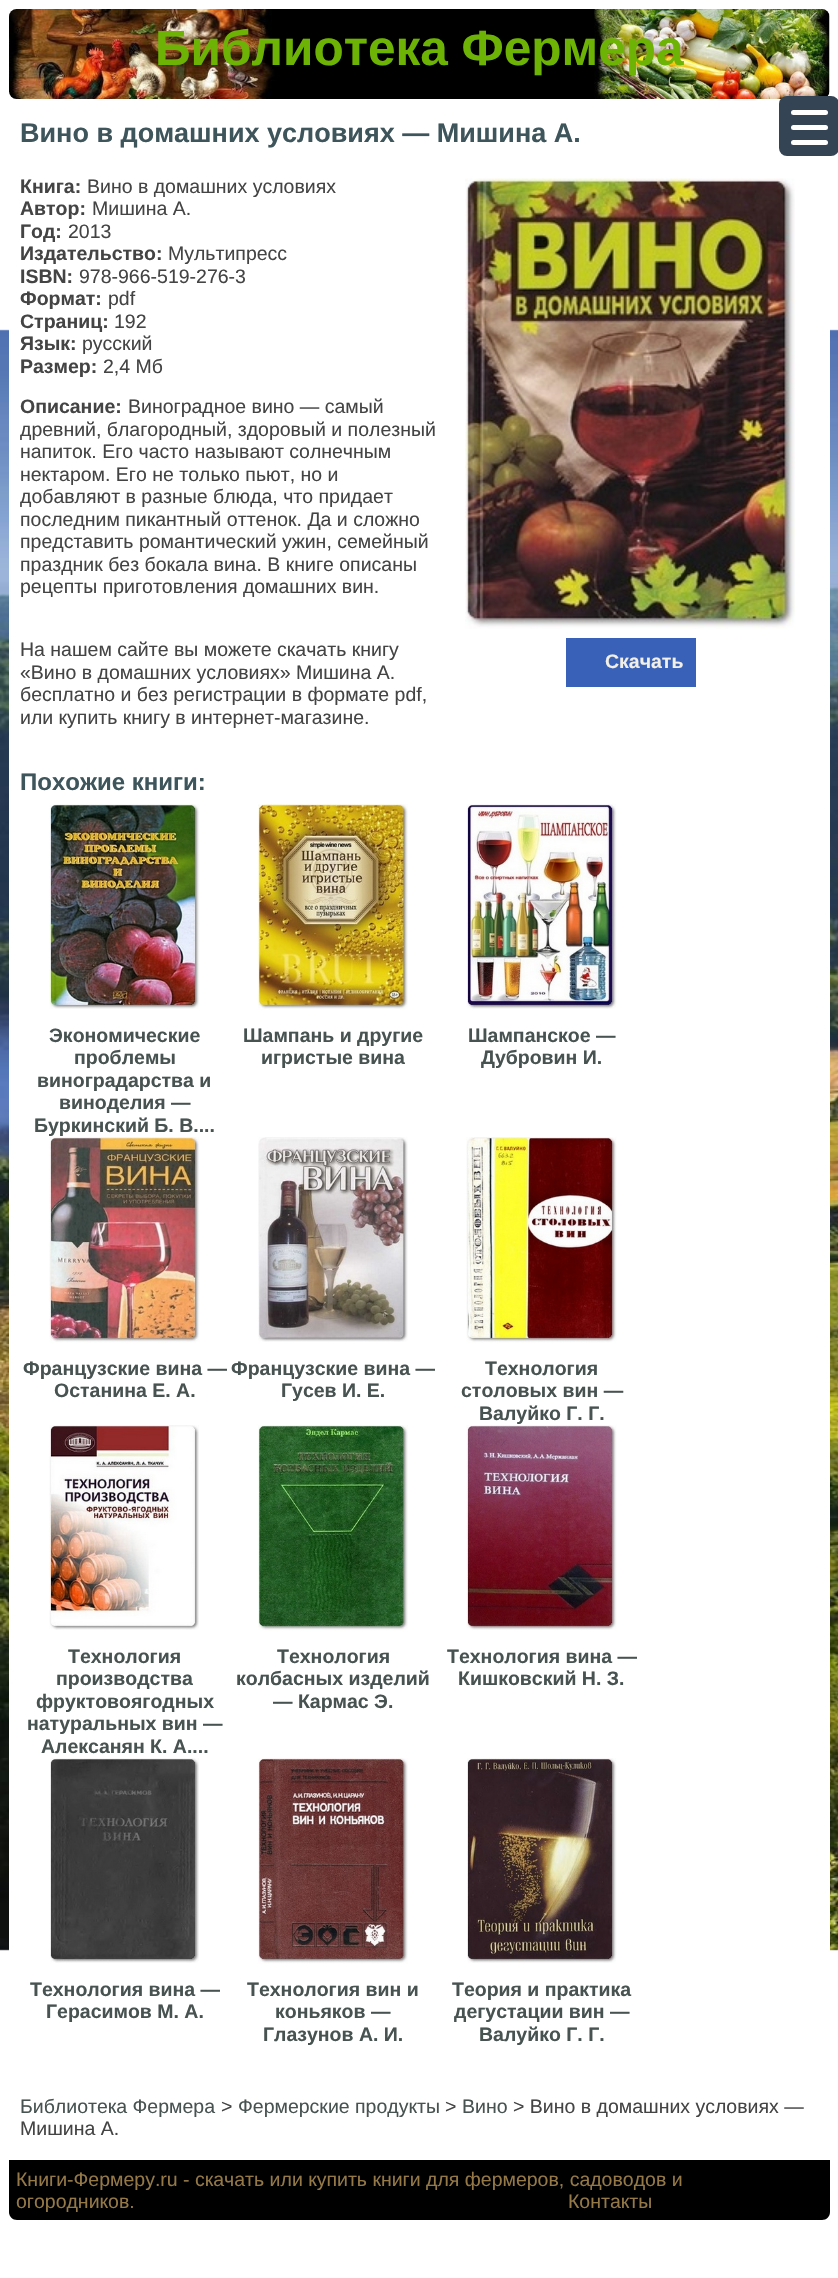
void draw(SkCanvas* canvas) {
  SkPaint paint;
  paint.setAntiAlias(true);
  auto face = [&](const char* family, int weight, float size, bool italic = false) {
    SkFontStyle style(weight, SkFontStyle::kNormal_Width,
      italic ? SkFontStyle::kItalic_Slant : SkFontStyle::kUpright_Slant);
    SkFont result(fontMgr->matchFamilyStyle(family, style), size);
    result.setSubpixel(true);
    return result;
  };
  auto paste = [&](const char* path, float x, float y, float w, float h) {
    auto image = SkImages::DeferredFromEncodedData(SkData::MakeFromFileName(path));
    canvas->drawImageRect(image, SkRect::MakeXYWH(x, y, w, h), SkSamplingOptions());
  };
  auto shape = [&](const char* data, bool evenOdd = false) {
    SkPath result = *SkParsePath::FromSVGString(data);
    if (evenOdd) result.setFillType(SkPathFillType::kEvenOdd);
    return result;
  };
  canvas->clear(0xffffffff);
  paste("img/1.png", 0, 329, 838, 1622);
  paint.setColor(0xffffffff);
  canvas->drawRoundRect(SkRect::MakeXYWH(9, 9, 821, 2211), 8, 8, paint);
  paste("img/2.png", 9, 9, 821, 90);
  paste("img/3.png", 465, 178, 330, 451);
  paint.setColor(0xff3961b8);
  canvas->drawRect(SkRect::MakeXYWH(566, 638, 130, 49), paint);
  paste("img/4.png", 49, 804, 151, 205);
  paste("img/5.png", 258, 804, 150, 206);
  paste("img/6.png", 466, 804, 151, 205);
  paste("img/7.png", 49, 1137, 151, 206);
  paste("img/8.png", 258, 1137, 150, 205);
  paste("img/9.png", 466, 1137, 151, 206);
  paste("img/10.png", 49, 1425, 150, 205);
  paste("img/11.png", 258, 1425, 150, 206);
  paste("img/12.png", 466, 1425, 151, 205);
  paste("img/13.png", 50, 1758, 149, 205);
  paste("img/14.png", 258, 1758, 150, 206);
  paste("img/15.png", 467, 1758, 150, 205);
  paint.setColor(0xff000000);
  canvas->drawPath(shape("M9 2160H830V2212C830 2216.5 826.5 2220 822 2220H17C12.5 2220 9 2216.5 9 2212Z"), paint);
  paint.setColor(0xff344454);
  canvas->drawRoundRect(SkRect::MakeXYWH(779, 96, 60, 60), 8, 8, paint);
  paint.setColor(0xffffffff);
  canvas->drawRoundRect(SkRect::MakeXYWH(791, 125, 37, 5), 2.5f, 2.5f, paint);
  canvas->drawRoundRect(SkRect::MakeXYWH(791, 110, 37, 5), 2.5f, 2.5f, paint);
  canvas->drawRoundRect(SkRect::MakeXYWH(791, 140, 37, 5), 2.5f, 2.5f, paint);
  auto f0 = face("Liberation Sans", 700, 49.5f);
  paint.setColor(0xff6db305);
  canvas->drawString("Библиотека Фермера", 155, 65, f0, paint);
  auto f1 = face("Liberation Sans", 700, 27);
  paint.setColor(0xff3e555b);
  canvas->drawString("Вино в домашних условиях — Мишина А.", 20, 142, f1, paint);
  auto f2 = face("Liberation Sans", 700, 19.5f);
  paint.setColor(0xff444444);
  canvas->drawString("Книга:", 20, 193, f2, paint);
  auto f3 = face("Liberation Sans", 400, 19.5f);
  canvas->drawString("Вино в домашних условиях", 87, 193, f3, paint);
  canvas->drawString("Автор:", 20, 215, f2, paint);
  canvas->drawString("Мишина А.", 92, 215, f3, paint);
  canvas->drawString("Год:", 20, 238, f2, paint);
  canvas->drawString("2013", 68, 238, f3, paint);
  canvas->drawString("Издательство:", 20, 260, f2, paint);
  canvas->drawString("Мультипресс", 168, 260, f3, paint);
  canvas->drawString("ISBN:", 20, 283, f2, paint);
  canvas->drawString("978-966-519-276-3", 79, 283, f3, paint);
  canvas->drawString("Формат:", 20, 305, f2, paint);
  canvas->drawString("pdf", 108, 305, f3, paint);
  canvas->drawString("Страниц:", 20, 328, f2, paint);
  canvas->drawString("192", 114, 328, f3, paint);
  canvas->drawString("Язык:", 20, 350, f2, paint);
  canvas->drawString("русский", 82, 350, f3, paint);
  canvas->drawString("Размер:", 20, 373, f2, paint);
  canvas->drawString("2,4 Мб", 103, 373, f3, paint);
  canvas->drawString("Описание:", 20, 413, f2, paint);
  {
    const struct { const char* s; float x, y; } items[] = {
      {"Виноградное вино — самый", 128, 413},
      {"древний, благородный, здоровый и полезный", 20, 436},
      {"напиток. Его часто называют солнечным", 20, 458},
      {"нектаром. Его не только пьют, но и", 20, 481},
      {"добавляют в разные блюда, что придает", 20, 503},
      {"последним пикантный оттенок. Да и сложно", 20, 526},
      {"представить романтический ужин, семейный", 20, 548},
      {"праздник без бокала вина. В книге описаны", 20, 571},
      {"рецепты приготовления домашних вин.", 20, 593},
      {"На нашем сайте вы можете скачать книгу", 20, 656},
      {"«Вино в домашних условиях» Мишина А.", 20, 679},
      {"бесплатно и без регистрации в формате pdf,", 20, 701},
      {"или купить книгу в интернет-магазине.", 20, 724},
    };
    for (auto [s, x, y] : items) {
      canvas->drawString(s, x, y, f3, paint);
    }
  }
  paint.setColor(0xfff2efe6);
  canvas->drawString("Скачать", 605, 668, f2, paint);
  auto f4 = face("Liberation Sans", 700, 24);
  paint.setColor(0xff3e555b);
  canvas->drawString("Похожие книги:", 20, 790, f4, paint);
  paint.setColor(0xff475251);
  {
    const struct { const char* s; float x, y; } items[] = {
      {"Экономические", 49, 1042},
      {"проблемы", 74, 1064},
      {"виноградарства и", 37, 1087},
      {"виноделия —", 59, 1109},
      {"Буркинский Б. В....", 34, 1132},
      {"Шампань и другие", 243, 1042},
      {"игристые вина", 261, 1064},
      {"Шампанское —", 468, 1042},
      {"Дубровин И.", 481, 1064},
      {"Французские вина —", 23, 1375},
      {"Останина Е. А.", 54, 1397},
      {"Французские вина —", 231, 1375},
      {"Гусев И. Е.", 281, 1397},
      {"Технология", 485, 1375},
      {"столовых вин —", 461, 1397},
      {"Валуйко Г. Г.", 479, 1420},
      {"Технология", 68, 1663},
      {"производства", 56, 1685},
      {"фруктовоягодных", 36, 1708},
      {"натуральных вин —", 27, 1730},
      {"Алексанян К. А....", 41, 1753},
      {"Технология", 277, 1663},
      {"колбасных изделий", 236, 1685},
      {"— Кармас Э.", 273, 1708},
      {"Технология вина —", 447, 1663},
      {"Кишковский Н. З.", 458, 1685},
      {"Технология вина —", 30, 1996},
      {"Герасимов М. А.", 46, 2018},
      {"Технология вин и", 247, 1996},
      {"коньяков —", 275, 2018},
      {"Глазунов А. И.", 263, 2041},
      {"Теория и практика", 452, 1996},
      {"дегустации вин —", 454, 2018},
      {"Валуйко Г. Г.", 479, 2041},
    };
    for (auto [s, x, y] : items) {
      canvas->drawString(s, x, y, f2, paint);
    }
  }
  canvas->drawString("Библиотека Фермера", 20, 2113, f3, paint);
  paint.setColor(0xff444444);
  canvas->drawString(">", 221, 2113, f3, paint);
  paint.setColor(0xff475251);
  canvas->drawString("Фермерские продукты", 238, 2113, f3, paint);
  paint.setColor(0xff444444);
  canvas->drawString(">", 445, 2113, f3, paint);
  paint.setColor(0xff475251);
  canvas->drawString("Вино", 462, 2113, f3, paint);
  paint.setColor(0xff444444);
  canvas->drawString("> Вино в домашних условиях —", 513, 2113, f3, paint);
  canvas->drawString("Мишина А.", 20, 2135, f3, paint);
  paint.setColor(0xff947847);
  {
    const struct { const char* s; float x, y; } items[] = {
      {"Книги-Фермеру.ru - скачать или купить книги для фермеров, садоводов и", 16, 2186},
      {"огородников.", 16, 2208},
      {"Контакты", 568, 2208},
    };
    for (auto [s, x, y] : items) {
      canvas->drawString(s, x, y, f3, paint);
    }
  }
}
